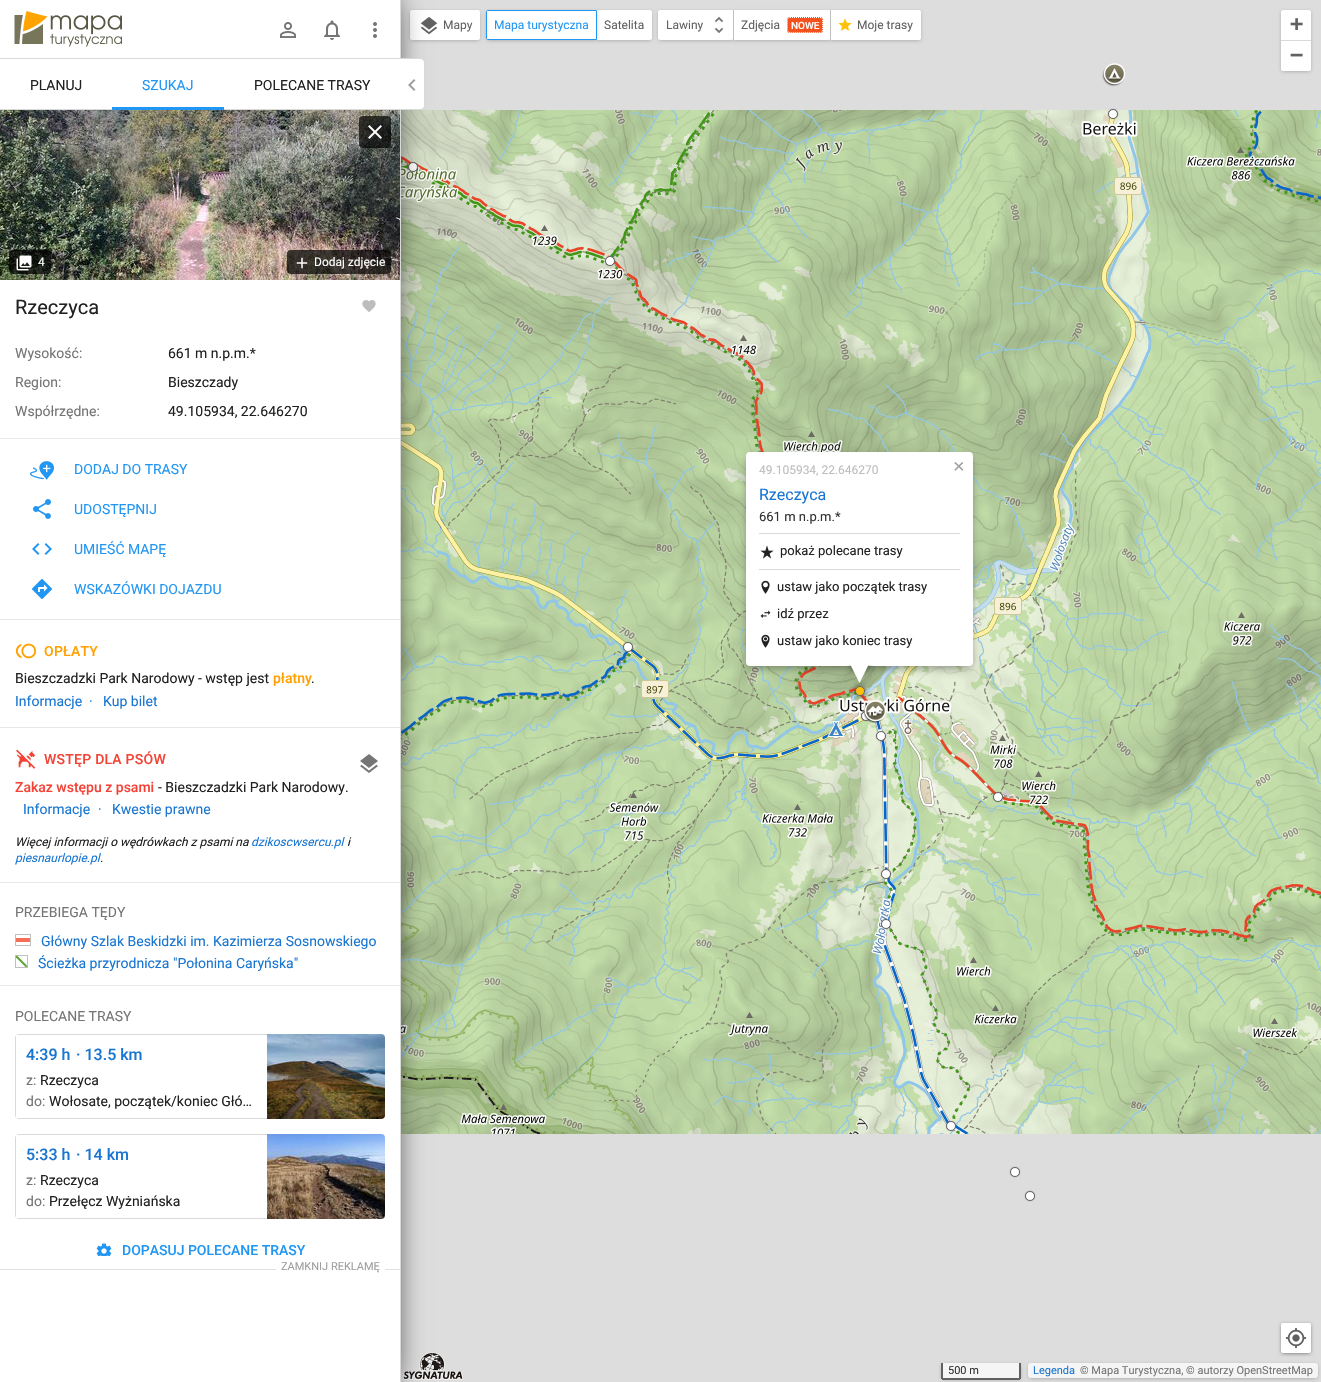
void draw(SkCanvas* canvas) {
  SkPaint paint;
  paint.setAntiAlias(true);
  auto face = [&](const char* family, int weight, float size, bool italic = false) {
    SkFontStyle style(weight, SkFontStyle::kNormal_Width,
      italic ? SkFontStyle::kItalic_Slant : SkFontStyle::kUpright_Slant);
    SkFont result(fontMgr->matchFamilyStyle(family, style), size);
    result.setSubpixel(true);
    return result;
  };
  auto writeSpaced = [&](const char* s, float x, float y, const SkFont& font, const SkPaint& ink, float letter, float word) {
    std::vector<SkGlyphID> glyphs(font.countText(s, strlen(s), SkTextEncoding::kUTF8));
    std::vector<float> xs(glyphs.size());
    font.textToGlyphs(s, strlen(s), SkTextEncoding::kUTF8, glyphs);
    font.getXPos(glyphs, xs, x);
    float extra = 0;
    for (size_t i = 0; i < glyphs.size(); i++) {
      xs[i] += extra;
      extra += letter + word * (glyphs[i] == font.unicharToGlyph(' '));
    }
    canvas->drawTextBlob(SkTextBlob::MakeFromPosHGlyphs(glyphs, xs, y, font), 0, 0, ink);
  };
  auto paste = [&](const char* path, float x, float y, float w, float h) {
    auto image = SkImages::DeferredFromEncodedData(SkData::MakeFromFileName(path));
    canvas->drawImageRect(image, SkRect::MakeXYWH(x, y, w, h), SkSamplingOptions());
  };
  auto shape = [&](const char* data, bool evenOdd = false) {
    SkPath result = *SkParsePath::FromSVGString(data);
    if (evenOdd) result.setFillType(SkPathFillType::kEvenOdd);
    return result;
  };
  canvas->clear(0xffdddddd);
  paint.setColor(0x4d000000);
  paint.setMaskFilter(SkMaskFilter::MakeBlur(kNormal_SkBlurStyle, 2));
  canvas->drawRoundRect(SkRect::MakeXYWH(411, 12, 68, 28), 1, 1, paint);
  paint.setMaskFilter(nullptr);
  paint.setColor(0xffffffff);
  canvas->drawRoundRect(SkRect::MakeXYWH(410, 10, 70, 30), 2, 2, paint);
  paste("img/21.png", 420, 17, 18, 18);
  paste("img/24.png", 403, 1352, 60, 28);
  paste("img/28.png", 401, 110, 35, 256);
  paint.setColor(0x80000000);
  paint.setMaskFilter(SkMaskFilter::MakeBlur(kNormal_SkBlurStyle, 0.5f));
  canvas->drawRoundRect(SkRect::MakeXYWH(408, 162, 10, 10), 5, 5, paint);
  paint.setMaskFilter(nullptr);
  paint.setColor(0xffffffff);
  canvas->drawCircle(413, 167, 4.5f, paint);
  paint.setStroke(true);
  paint.setStrokeWidth(1);
  paint.setColor(0xff666666);
  canvas->drawCircle(413, 167, 4.5f, paint);
  paste("img/29.png", 436, 110, 256, 256);
  paste("img/33.png", 401, 366, 35, 256);
  paste("img/34.png", 436, 366, 256, 256);
  paste("img/38.png", 401, 622, 35, 256);
  paste("img/39.png", 436, 622, 256, 256);
  paste("img/43.png", 401, 878, 35, 256);
  paste("img/44.png", 436, 878, 256, 256);
  paint.setStroke(false);
  paint.setColor(0xff000000);
  paint.setMaskFilter(SkMaskFilter::MakeBlur(kNormal_SkBlurStyle, 15));
  canvas->drawRect(SkRect::MakeXYWH(-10, 0, 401, 1382), paint);
  paint.setMaskFilter(nullptr);
  {
    const struct { float x, y, w, h; SkColor color; } items[] = {
      {0, 0, 400, 1382, 0xffffffff},
      {400, 0, 1, 1382, 0xffd9d9d9},
      {0, 58, 400, 1, 0xffd9d9d9},
    };
    for (auto [x, y, w, h, color] : items) {
      paint.setColor(color);
      canvas->drawRect(SkRect::MakeXYWH(x, y, w, h), paint);
    }
  }
  paste("img/1.png", 14, 11, 108, 36);
  paste("img/2.png", 280, 22, 16, 16);
  paste("img/3.png", 324, 20, 16, 20);
  paste("img/4.png", 373, 22, 4, 16);
  canvas->drawRect(SkRect::MakeXYWH(0, 109, 400, 1), paint);
  paint.setColor(0xff2196f3);
  canvas->drawRect(SkRect::MakeXYWH(112, 107, 112, 3), paint);
  paste("img/6.png", 0, 110, 400, 170);
  paint.setColor(0xb3000000);
  canvas->drawRoundRect(SkRect::MakeXYWH(359, 116, 32, 32), 4, 4, paint);
  paste("img/5.png", 368, 125, 14, 14);
  canvas->drawRoundRect(SkRect::MakeXYWH(9, 250, 42, 24), 4, 4, paint);
  paste("img/7.png", 16, 255, 16, 16);
  canvas->drawRoundRect(SkRect::MakeXYWH(287, 250, 104, 24), 4, 4, paint);
  paste("img/8.png", 296, 257, 12, 12);
  paste("img/9.png", 362, 300, 14, 12);
  paint.setColor(0xffe8e8e8);
  canvas->drawRect(SkRect::MakeXYWH(0, 438, 400, 1), paint);
  canvas->drawRect(SkRect::MakeXYWH(0, 619, 400, 1), paint);
  paste("img/10.png", 30, 461, 24, 19);
  paste("img/11.png", 33, 499, 18, 20);
  paste("img/12.png", 32, 543, 20, 12);
  paste("img/13.png", 32, 579, 20, 20);
  canvas->drawRect(SkRect::MakeXYWH(0, 727, 400, 1), paint);
  paste("img/14.png", 15, 643, 22, 16);
  canvas->drawRect(SkRect::MakeXYWH(0, 882, 400, 1), paint);
  paste("img/15.png", 16, 749, 20, 20);
  paste("img/16.png", 360, 754, 18, 19);
  canvas->drawRect(SkRect::MakeXYWH(0, 985, 400, 1), paint);
  paint.setStroke(true);
  paint.setColor(0xffc0c0c0);
  canvas->drawRect(SkRect::MakeXYWH(15.5f, 934.5f, 15, 11), paint);
  paint.setStroke(false);
  paint.setColor(0xfff46f55);
  canvas->drawRect(SkRect::MakeXYWH(16, 938, 14, 4), paint);
  paint.setStroke(true);
  paint.setColor(0xffc0c0c0);
  canvas->drawRect(SkRect::MakeXYWH(15.5f, 955.5f, 12, 12), paint);
  canvas->save();
  canvas->clipRect(SkRect::MakeXYWH(16, 956, 11, 11));
  paint.setStroke(false);
  paint.setColor(0xff5ea83b);
  canvas->drawPath(shape("M14.5 953L30 968.5L28.5 970L13 954.5Z"), paint);
  canvas->restore();
  canvas->save();
  canvas->clipPath(shape("M19 1034H381C383 1034 385 1036 385 1038V1115C385 1117 383 1119 381 1119H19C17 1119 15 1117 15 1115V1038C15 1036 17 1034 19 1034Z"), true);
  {
    const struct { float x, y, w, h; SkColor color; } items[] = {
      {15, 1034, 252, 1, 0xffd9d9d9},
      {15, 1118, 252, 1, 0xffd9d9d9},
      {15, 1034, 1, 85, 0xffd9d9d9},
    };
    for (auto [x, y, w, h, color] : items) {
      paint.setColor(color);
      canvas->drawRect(SkRect::MakeXYWH(x, y, w, h), paint);
    }
  }
  canvas->restore();
  paste("img/17.png", 267, 1034, 118, 85);
  canvas->save();
  canvas->clipPath(shape("M19 1134H381C383 1134 385 1136 385 1138V1215C385 1217 383 1219 381 1219H19C17 1219 15 1217 15 1215V1138C15 1136 17 1134 19 1134Z"), true);
  {
    const struct { float x, y, w, h; SkColor color; } items[] = {
      {15, 1134, 252, 1, 0xffd9d9d9},
      {15, 1218, 252, 1, 0xffd9d9d9},
      {15, 1134, 1, 85, 0xffd9d9d9},
    };
    for (auto [x, y, w, h, color] : items) {
      paint.setColor(color);
      canvas->drawRect(SkRect::MakeXYWH(x, y, w, h), paint);
    }
  }
  canvas->restore();
  paste("img/18.png", 267, 1134, 118, 85);
  paste("img/19.png", 96, 1243, 16, 13);
  paint.setColor(0xffffffff);
  canvas->drawPath(shape("M400 59H421C422.5 59 424 60.5 424 62V106C424 107.5 422.5 109 421 109H400Z"), paint);
  paint.setColor(0xffd9d9d9);
  canvas->drawPath(shape("M400 58H421C423 58 425 60 425 62V106C425 108 423 110 421 110H400ZM400 59H421C423 59 424 60 424 62V106C424 108 423 109 421 109H400Z", true), paint);
  paste("img/20.png", 408, 79, 8, 12);
  paint.setColor(0xffe0e0e0);
  canvas->drawRect(SkRect::MakeXYWH(0, 1269, 400, 1), paint);
  paint.setColor(0xffffffff);
  canvas->drawRect(SkRect::MakeXYWH(276, 1269, 109, 1), paint);
  paint.setColor(0x4d000000);
  paint.setMaskFilter(SkMaskFilter::MakeBlur(kNormal_SkBlurStyle, 2));
  canvas->drawRoundRect(SkRect::MakeXYWH(597, 12, 54, 28), 1, 1, paint);
  paint.setMaskFilter(nullptr);
  paint.setColor(0xffffffff);
  canvas->drawPath(shape("M596 10H650C651 10 652 11 652 12V38C652 39 651 40 650 40H596Z"), paint);
  paint.setColor(0x4d000000);
  paint.setMaskFilter(SkMaskFilter::MakeBlur(kNormal_SkBlurStyle, 2));
  canvas->drawRoundRect(SkRect::MakeXYWH(487, 12, 109, 28), 1, 1, paint);
  paint.setMaskFilter(nullptr);
  paint.setColor(0xffffffff);
  canvas->drawPath(shape("M488 10.5H596.5V39.5H488C487 39.5 486.5 39 486.5 38V12C486.5 11 487 10.5 488 10.5Z"), paint);
  paint.setStroke(true);
  paint.setColor(0xff2196f3);
  canvas->drawPath(shape("M488 10.5H596.5V39.5H488C487 39.5 486.5 39 486.5 38V12C486.5 11 487 10.5 488 10.5Z"), paint);
  paint.setStroke(false);
  paint.setColor(0x4d000000);
  paint.setMaskFilter(SkMaskFilter::MakeBlur(kNormal_SkBlurStyle, 2));
  canvas->drawRoundRect(SkRect::MakeXYWH(659, 12, 74, 28), 1, 1, paint);
  paint.setMaskFilter(nullptr);
  paint.setColor(0xffffffff);
  canvas->drawPath(shape("M660 10H734V40H660C659 40 658 39 658 38V12C658 11 659 10 660 10Z"), paint);
  paste("img/22.png", 714, 16, 10, 18);
  paint.setColor(0x4d000000);
  paint.setMaskFilter(SkMaskFilter::MakeBlur(kNormal_SkBlurStyle, 2));
  canvas->drawRect(SkRect::MakeXYWH(734, 12, 96, 28), paint);
  paint.setMaskFilter(nullptr);
  {
    const struct { float x, y, w, h; SkColor color; } items[] = {
      {730, 11, 3, 28, 0xffffffff},
      {733, 10, 1, 30, 0xffc0c0c0},
      {734, 10, 96, 30, 0xffffffff},
    };
    for (auto [x, y, w, h, color] : items) {
      paint.setColor(color);
      canvas->drawRect(SkRect::MakeXYWH(x, y, w, h), paint);
    }
  }
  paint.setColor(0xfff4511e);
  canvas->drawRoundRect(SkRect::MakeXYWH(787, 17, 36, 16), 3, 3, paint);
  paint.setStroke(true);
  paint.setColor(0xffffffff);
  paint.setPathEffect(SkDashPathEffect::Make({{1, 1}}, 0));
  canvas->drawPath(shape("M790 17.5H820C821.5 17.5 822.5 18.5 822.5 20V30C822.5 31.5 821.5 32.5 820 32.5H790C788.5 32.5 787.5 31.5 787.5 30V20C787.5 18.5 788.5 17.5 790 17.5Z"), paint);
  paint.setPathEffect(nullptr);
  paint.setStroke(false);
  paint.setColor(0x4d000000);
  paint.setMaskFilter(SkMaskFilter::MakeBlur(kNormal_SkBlurStyle, 2));
  canvas->drawRoundRect(SkRect::MakeXYWH(831, 12, 89, 28), 1, 1, paint);
  paint.setMaskFilter(nullptr);
  paint.setColor(0xffffffff);
  canvas->drawRect(SkRect::MakeXYWH(827, 11, 3, 28), paint);
  canvas->drawPath(shape("M830 10H919C920 10 921 11 921 12V38C921 39 920 40 919 40H830Z"), paint);
  paint.setColor(0xffc0c0c0);
  canvas->drawRect(SkRect::MakeXYWH(830, 10, 1, 30), paint);
  paste("img/23.png", 838, 18, 14, 13);
  paint.setColor(0x4d000000);
  paint.setMaskFilter(SkMaskFilter::MakeBlur(kNormal_SkBlurStyle, 2));
  canvas->drawRoundRect(SkRect::MakeXYWH(1282, 12, 28, 59), 1, 1, paint);
  paint.setMaskFilter(nullptr);
  paint.setColor(0xffffffff);
  canvas->drawPath(shape("M1283 10H1309C1310 10 1311 11 1311 12V41H1281V12C1281 11 1282 10 1283 10Z"), paint);
  paint.setColor(0xffd9d9d9);
  canvas->drawRect(SkRect::MakeXYWH(1281, 40, 30, 1), paint);
  paint.setColor(0xffffffff);
  canvas->drawPath(shape("M1281 41H1311V69C1311 70 1310 71 1309 71H1283C1282 71 1281 70 1281 69Z"), paint);
  paint.setColor(0x4d000000);
  paint.setMaskFilter(SkMaskFilter::MakeBlur(kNormal_SkBlurStyle, 2));
  canvas->drawRoundRect(SkRect::MakeXYWH(1282, 1325, 28, 28), 1, 1, paint);
  paint.setMaskFilter(nullptr);
  paint.setMaskFilter(SkMaskFilter::MakeBlur(kNormal_SkBlurStyle, 2));
  canvas->drawRoundRect(SkRect::MakeXYWH(1282, 1325, 28, 28), 1, 1, paint);
  paint.setMaskFilter(nullptr);
  paint.setColor(0xffffffff);
  canvas->drawRoundRect(SkRect::MakeXYWH(1281, 1323, 30, 30), 2, 2, paint);
  paste("img/25.png", 1285, 1327, 22, 22);
  canvas->save();
  canvas->clipPath(shape("M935 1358H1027V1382H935ZM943 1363H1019C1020 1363 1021 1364 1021 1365V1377C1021 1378 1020 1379 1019 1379H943C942 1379 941 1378 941 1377V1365C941 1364 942 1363 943 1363Z", true), true);
  paint.setColor(0x4d000000);
  paint.setMaskFilter(SkMaskFilter::MakeBlur(kNormal_SkBlurStyle, 2));
  canvas->drawRoundRect(SkRect::MakeXYWH(942, 1365, 78, 14), 1, 1, paint);
  paint.setMaskFilter(nullptr);
  canvas->restore();
  paint.setColor(0xb3ffffff);
  canvas->drawPath(shape("M941 1363H1021V1378C1021 1379 1020 1380 1019 1380H943C942 1380 941 1379 941 1378Z"), paint);
  {
    const struct { float x, y, w, h; SkColor color; } items[] = {
      {1019, 1363, 2, 16, 0xff616161},
      {942, 1378, 78, 2, 0xff616161},
      {941, 1363, 2, 16, 0xff616161},
    };
    for (auto [x, y, w, h, color] : items) {
      paint.setColor(color);
      canvas->drawRect(SkRect::MakeXYWH(x, y, w, h), paint);
    }
  }
  canvas->save();
  canvas->clipPath(shape("M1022 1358H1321V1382H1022ZM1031 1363H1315C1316.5 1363 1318 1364.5 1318 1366V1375C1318 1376.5 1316.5 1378 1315 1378H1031C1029.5 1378 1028 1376.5 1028 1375V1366C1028 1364.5 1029.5 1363 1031 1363Z", true), true);
  paint.setColor(0x4d000000);
  paint.setMaskFilter(SkMaskFilter::MakeBlur(kNormal_SkBlurStyle, 2));
  canvas->drawRoundRect(SkRect::MakeXYWH(1029, 1365, 288, 13), 2, 2, paint);
  paint.setMaskFilter(nullptr);
  canvas->restore();
  paint.setColor(0xb3ffffff);
  canvas->drawRoundRect(SkRect::MakeXYWH(1028, 1363, 290, 15), 3, 3, paint);
  paste("img/26.png", 1102, 63, 24, 24);
  paste("img/31.png", 948, 110, 256, 256);
  paint.setColor(0x80000000);
  paint.setMaskFilter(SkMaskFilter::MakeBlur(kNormal_SkBlurStyle, 0.5f));
  canvas->drawRoundRect(SkRect::MakeXYWH(1108, 109, 10, 10), 5, 5, paint);
  paint.setMaskFilter(nullptr);
  paint.setColor(0xffffffff);
  canvas->drawCircle(1113, 114, 4.5f, paint);
  paint.setStroke(true);
  paint.setColor(0xff666666);
  canvas->drawCircle(1113, 114, 4.5f, paint);
  paint.setStroke(false);
  paint.setColor(0x80000000);
  paint.setMaskFilter(SkMaskFilter::MakeBlur(kNormal_SkBlurStyle, 0.5f));
  canvas->drawRoundRect(SkRect::MakeXYWH(605, 256, 10, 10), 5, 5, paint);
  paint.setMaskFilter(nullptr);
  paint.setColor(0xffffffff);
  canvas->drawCircle(610, 261, 4.5f, paint);
  paint.setStroke(true);
  paint.setColor(0xff666666);
  canvas->drawCircle(610, 261, 4.5f, paint);
  paint.setStroke(false);
  paint.setColor(0x80000000);
  paint.setMaskFilter(SkMaskFilter::MakeBlur(kNormal_SkBlurStyle, 0.5f));
  canvas->drawRoundRect(SkRect::MakeXYWH(623, 642, 10, 10), 5, 5, paint);
  paint.setMaskFilter(nullptr);
  paint.setColor(0xffffffff);
  canvas->drawCircle(628, 647, 4.5f, paint);
  paint.setStroke(true);
  paint.setColor(0xff666666);
  canvas->drawCircle(628, 647, 4.5f, paint);
  paste("img/40.png", 692, 622, 256, 256);
  paint.setStroke(false);
  paint.setColor(0x80000000);
  paint.setMaskFilter(SkMaskFilter::MakeBlur(kNormal_SkBlurStyle, 3));
  canvas->drawRoundRect(SkRect::MakeXYWH(855, 686, 10, 10), 5, 5, paint);
  paint.setMaskFilter(nullptr);
  paint.setColor(0xffffc107);
  canvas->drawCircle(860, 691, 4.5f, paint);
  paint.setStroke(true);
  paint.setColor(0xff666666);
  canvas->drawCircle(860, 691, 4.5f, paint);
  paint.setStroke(false);
  paint.setColor(0x80000000);
  paint.setMaskFilter(SkMaskFilter::MakeBlur(kNormal_SkBlurStyle, 0.5f));
  canvas->drawRoundRect(SkRect::MakeXYWH(861, 711, 10, 10), 5, 5, paint);
  paint.setMaskFilter(nullptr);
  paint.setColor(0xffffffff);
  canvas->drawCircle(866, 716, 4.5f, paint);
  paint.setStroke(true);
  paint.setColor(0xff666666);
  canvas->drawCircle(866, 716, 4.5f, paint);
  paste("img/27.png", 863, 700, 23, 24);
  paint.setStroke(false);
  paint.setColor(0x80000000);
  paint.setMaskFilter(SkMaskFilter::MakeBlur(kNormal_SkBlurStyle, 0.5f));
  canvas->drawRoundRect(SkRect::MakeXYWH(876, 731, 10, 10), 5, 5, paint);
  paint.setMaskFilter(nullptr);
  paint.setColor(0xffffffff);
  canvas->drawCircle(881, 736, 4.5f, paint);
  paint.setStroke(true);
  paint.setColor(0xff666666);
  canvas->drawCircle(881, 736, 4.5f, paint);
  paste("img/41.png", 948, 622, 256, 256);
  paint.setStroke(false);
  paint.setColor(0x80000000);
  paint.setMaskFilter(SkMaskFilter::MakeBlur(kNormal_SkBlurStyle, 0.5f));
  canvas->drawRoundRect(SkRect::MakeXYWH(993, 792, 10, 10), 5, 5, paint);
  paint.setMaskFilter(nullptr);
  paint.setColor(0xffffffff);
  canvas->drawCircle(998, 797, 4.5f, paint);
  paint.setStroke(true);
  paint.setColor(0xff666666);
  canvas->drawCircle(998, 797, 4.5f, paint);
  paste("img/45.png", 692, 878, 256, 256);
  paint.setStroke(false);
  paint.setColor(0x80000000);
  paint.setMaskFilter(SkMaskFilter::MakeBlur(kNormal_SkBlurStyle, 0.5f));
  canvas->drawRoundRect(SkRect::MakeXYWH(881, 869, 10, 10), 5, 5, paint);
  paint.setMaskFilter(nullptr);
  paint.setColor(0xffffffff);
  canvas->drawCircle(886, 874, 4.5f, paint);
  paint.setStroke(true);
  paint.setColor(0xff666666);
  canvas->drawCircle(886, 874, 4.5f, paint);
  paint.setStroke(false);
  paint.setColor(0x80000000);
  paint.setMaskFilter(SkMaskFilter::MakeBlur(kNormal_SkBlurStyle, 0.5f));
  canvas->drawRoundRect(SkRect::MakeXYWH(881, 919, 10, 10), 5, 5, paint);
  paint.setMaskFilter(nullptr);
  paint.setColor(0xffffffff);
  canvas->drawCircle(886, 924, 4.5f, paint);
  paint.setStroke(true);
  paint.setColor(0xff666666);
  canvas->drawCircle(886, 924, 4.5f, paint);
  paste("img/46.png", 948, 878, 256, 256);
  paint.setStroke(false);
  paint.setColor(0x80000000);
  paint.setMaskFilter(SkMaskFilter::MakeBlur(kNormal_SkBlurStyle, 0.5f));
  canvas->drawRoundRect(SkRect::MakeXYWH(946, 1121, 10, 10), 5, 5, paint);
  paint.setMaskFilter(nullptr);
  paint.setColor(0xffffffff);
  canvas->drawCircle(951, 1126, 4.5f, paint);
  paint.setStroke(true);
  paint.setColor(0xff666666);
  canvas->drawCircle(951, 1126, 4.5f, paint);
  paint.setStroke(false);
  paint.setColor(0x80000000);
  paint.setMaskFilter(SkMaskFilter::MakeBlur(kNormal_SkBlurStyle, 0.5f));
  canvas->drawRoundRect(SkRect::MakeXYWH(1010, 1167, 10, 10), 5, 5, paint);
  paint.setMaskFilter(nullptr);
  paint.setColor(0xffffffff);
  canvas->drawCircle(1015, 1172, 4.5f, paint);
  paint.setStroke(true);
  paint.setColor(0xff666666);
  canvas->drawCircle(1015, 1172, 4.5f, paint);
  paint.setStroke(false);
  paint.setColor(0x80000000);
  paint.setMaskFilter(SkMaskFilter::MakeBlur(kNormal_SkBlurStyle, 0.5f));
  canvas->drawRoundRect(SkRect::MakeXYWH(1025, 1191, 10, 10), 5, 5, paint);
  paint.setMaskFilter(nullptr);
  paint.setColor(0xffffffff);
  canvas->drawCircle(1030, 1196, 4.5f, paint);
  paint.setStroke(true);
  paint.setColor(0xff666666);
  canvas->drawCircle(1030, 1196, 4.5f, paint);
  paste("img/30.png", 692, 110, 256, 256);
  paste("img/32.png", 1204, 110, 117, 256);
  paste("img/35.png", 692, 366, 256, 256);
  paste("img/36.png", 948, 366, 256, 256);
  paste("img/37.png", 1204, 366, 117, 256);
  paste("img/42.png", 1204, 622, 117, 256);
  paste("img/47.png", 1204, 878, 117, 256);
  paint.setStroke(false);
  paint.setColor(0x66000000);
  paint.setMaskFilter(SkMaskFilter::MakeBlur(kNormal_SkBlurStyle, 5));
  canvas->drawRoundRect(SkRect::MakeXYWH(748, 458, 223, 210), 2, 2, paint);
  paint.setMaskFilter(nullptr);
  paint.setColor(0xffffffff);
  canvas->drawRoundRect(SkRect::MakeXYWH(746, 452, 227, 214), 4, 4, paint);
  paint.setColor(0xffd9d9d9);
  canvas->drawRect(SkRect::MakeXYWH(759, 533, 201, 1), paint);
  paste("img/48.png", 760, 545, 14, 14);
  canvas->drawRect(SkRect::MakeXYWH(759, 569, 201, 1), paint);
  paste("img/49.png", 761, 580, 9, 14);
  paste("img/50.png", 760, 610, 11, 8);
  paste("img/51.png", 761, 634, 9, 14);
  canvas->save();
  canvas->clipRect(SkRect::MakeXYWH(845, 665, 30, 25));
  paint.setColor(0xb3000000);
  paint.setMaskFilter(SkMaskFilter::MakeBlur(kNormal_SkBlurStyle, 3.5f));
  canvas->drawRect(SkRect::MakeXYWH(853, 656, 14, 14), paint);
  paint.setMaskFilter(nullptr);
  canvas->restore();
  canvas->save();
  canvas->clipRect(SkRect::MakeXYWH(845, 665, 30, 25));
  paint.setColor(0xffffffff);
  canvas->drawPath(shape("M859.5 643L869.5 663L859.5 683L849.5 663Z"), paint);
  canvas->restore();
  auto f0 = face("Roboto", 400, 14);
  paint.setColor(0xff212121);
  canvas->drawString("PLANUJ", 30, 90, f0, paint);
  paint.setColor(0xff2196f3);
  canvas->drawString("SZUKAJ", 142, 90, f0, paint);
  paint.setColor(0xff212121);
  canvas->drawString("POLECANE TRASY", 254, 90, f0, paint);
  auto f1 = face("Roboto", 400, 12);
  paint.setColor(0xffffffff);
  canvas->drawString("4", 38, 266, f1, paint);
  canvas->drawString("Dodaj zdjęcie", 314, 266, f1, paint);
  auto f2 = face("Roboto", 400, 20);
  paint.setColor(0xff212121);
  canvas->drawString("Rzeczyca", 15, 314, f2, paint);
  paint.setColor(0xff757575);
  canvas->drawString("Wysokość:", 15, 358, f0, paint);
  paint.setColor(0xff212121);
  canvas->drawString("661 m n.p.m.*", 168, 358, f0, paint);
  paint.setColor(0xff757575);
  canvas->drawString("Region:", 15, 387, f0, paint);
  paint.setColor(0xff212121);
  canvas->drawString("Bieszczady", 168, 387, f0, paint);
  paint.setColor(0xff757575);
  canvas->drawString("Współrzędne:", 15, 416, f0, paint);
  paint.setColor(0xff212121);
  canvas->drawString("49.105934, 22.646270", 168, 416, f0, paint);
  paint.setColor(0xff2196f3);
  {
    const struct { const char* s; float x, y; } items[] = {
      {"DODAJ DO TRASY", 74, 474},
      {"UDOSTĘPNIJ", 74, 514},
      {"UMIEŚĆ MAPĘ", 74, 554},
      {"WSKAZÓWKI DOJAZDU", 74, 594},
    };
    for (auto [s, x, y] : items) {
      canvas->drawString(s, x, y, f0, paint);
    }
  }
  auto f3 = face("Roboto", 500, 14);
  paint.setColor(0xffffa000);
  writeSpaced("OPŁATY", 44, 656, f3, paint, 0.25f, 0);
  paint.setColor(0xff212121);
  canvas->drawString("Bieszczadzki Park Narodowy - wstęp jest", 15, 683, f0, paint);
  paint.setColor(0xffffa000);
  canvas->drawString("płatny", 273, 683, f3, paint);
  paint.setColor(0xff212121);
  canvas->drawString(".", 311, 683, f0, paint);
  paint.setColor(0xff1976d2);
  {
    const struct { const char* s; float x, y; } items[] = {
      {"Informacje", 15, 706},
      {"·", 89, 706},
      {"Kup bilet", 103, 706},
    };
    for (auto [s, x, y] : items) {
      canvas->drawString(s, x, y, f0, paint);
    }
  }
  paint.setColor(0xfff44336);
  writeSpaced("WSTĘP DLA PSÓW", 44, 764, f3, paint, 0.25f, 0);
  canvas->drawString("Zakaz wstępu z psami", 15, 792, f3, paint);
  paint.setColor(0xff212121);
  canvas->drawString("- Bieszczadzki Park Narodowy.", 158, 792, f0, paint);
  paint.setColor(0xff1976d2);
  {
    const struct { const char* s; float x, y; } items[] = {
      {"Informacje", 23, 814},
      {"·", 98, 814},
      {"Kwestie prawne", 112, 814},
    };
    for (auto [s, x, y] : items) {
      canvas->drawString(s, x, y, f0, paint);
    }
  }
  auto f4 = face("Roboto", 400, 12, true);
  paint.setColor(0xff212121);
  canvas->drawString("Więcej informacji o wędrówkach z psami na", 15, 846, f4, paint);
  paint.setColor(0xff1976d2);
  canvas->drawString("dzikoscwsercu.pl", 251, 846, f4, paint);
  paint.setColor(0xff212121);
  canvas->drawString("i", 347, 846, f4, paint);
  paint.setColor(0xff1976d2);
  canvas->drawString("piesnaurlopie.pl", 15, 862, f4, paint);
  paint.setColor(0xff212121);
  canvas->drawString(".", 100, 862, f4, paint);
  paint.setColor(0xff757575);
  canvas->drawString("PRZEBIEGA TĘDY", 15, 917, f0, paint);
  paint.setColor(0xff1976d2);
  canvas->drawString("Główny Szlak Beskidzki im. Kazimierza Sosnowskiego", 41, 946, f0, paint);
  canvas->drawString("Ścieżka przyrodnicza \"Połonina Caryńska\"", 38, 968, f0, paint);
  paint.setColor(0xff757575);
  canvas->drawString("POLECANE TRASY", 15, 1021, f0, paint);
  auto f5 = face("Roboto", 500, 16);
  paint.setColor(0xff1976d2);
  canvas->drawString("4:39 h", 26, 1060, f5, paint);
  canvas->drawString("· 13.5 km", 76, 1060, f5, paint);
  paint.setColor(0xff757575);
  canvas->drawString("z:", 26, 1085, f0, paint);
  paint.setColor(0xff212121);
  canvas->drawString("Rzeczyca", 40, 1085, f0, paint);
  paint.setColor(0xff757575);
  canvas->drawString("do:", 26, 1106, f0, paint);
  paint.setColor(0xff212121);
  canvas->drawString("Wołosate, początek/koniec Głó…", 49, 1106, f0, paint);
  paint.setColor(0xff1976d2);
  canvas->drawString("5:33 h", 26, 1160, f5, paint);
  canvas->drawString("· 14 km", 76, 1160, f5, paint);
  paint.setColor(0xff757575);
  canvas->drawString("z:", 26, 1185, f0, paint);
  paint.setColor(0xff212121);
  canvas->drawString("Rzeczyca", 40, 1185, f0, paint);
  paint.setColor(0xff757575);
  canvas->drawString("do:", 26, 1206, f0, paint);
  paint.setColor(0xff212121);
  canvas->drawString("Przełęcz Wyżniańska", 49, 1206, f0, paint);
  paint.setColor(0xff2196f3);
  canvas->drawString("DOPASUJ POLECANE TRASY", 122, 1255, f3, paint);
  auto f6 = face("Roboto", 400, 11);
  paint.setColor(0xff9e9e9e);
  canvas->drawString("ZAMKNIJ REKLAMĘ", 281, 1270, f6, paint);
  paint.setColor(0xff616161);
  canvas->drawString("Mapy", 443, 29, f1, paint);
  paint.setColor(0xff2196f3);
  canvas->drawString("Mapa turystyczna", 494, 29, f1, paint);
  paint.setColor(0xff616161);
  {
    const struct { const char* s; float x, y; } items[] = {
      {"Satelita", 604, 29},
      {"Lawiny", 666, 29},
      {"Zdjęcia", 741, 29},
    };
    for (auto [s, x, y] : items) {
      canvas->drawString(s, x, y, f1, paint);
    }
  }
  auto f7 = face("Roboto", 500, 10);
  paint.setColor(0xffffffff);
  canvas->drawString("NOWE", 791, 29, f7, paint);
  paint.setColor(0xff616161);
  canvas->drawString("Moje trasy", 857, 29, f1, paint);
  auto f8 = face("DejaVu Sans Mono", 700, 22);
  canvas->drawString("+", 1290, 31, f8, paint);
  canvas->drawString("−", 1290, 62, f8, paint);
  paint.setColor(0xff333333);
  canvas->drawString("500 m", 948, 1374, f6, paint);
  paint.setColor(0xff1976d2);
  canvas->drawString("Legenda", 1033, 1374, f6, paint);
  paint.setColor(0xff757575);
  canvas->drawString("© Mapa Turystyczna, © autorzy OpenStreetMap", 1080, 1374, f6, paint);
  paint.setColor(0xffbdbdbd);
  canvas->drawString("49.105934, 22.646270", 759, 474, f1, paint);
  auto f9 = face("Roboto", 400, 16);
  paint.setColor(0xff1976d2);
  canvas->drawString("Rzeczyca", 759, 500, f9, paint);
  auto f10 = face("Roboto", 400, 13);
  paint.setColor(0xff333333);
  canvas->drawString("661 m n.p.m.*", 759, 521, f10, paint);
  paint.setColor(0xff212121);
  {
    const struct { const char* s; float x, y; } items[] = {
      {"pokaż polecane trasy", 780, 555},
      {"ustaw jako początek trasy", 777, 591},
      {"idź przez", 777, 618},
      {"ustaw jako koniec trasy", 777, 645},
    };
    for (auto [s, x, y] : items) {
      canvas->drawString(s, x, y, f10, paint);
    }
  }
  auto f11 = face("Liberation Sans", 400, 20);
  paint.setColor(0xff9e9e9e);
  canvas->drawString("×", 953, 473, f11, paint);
}
